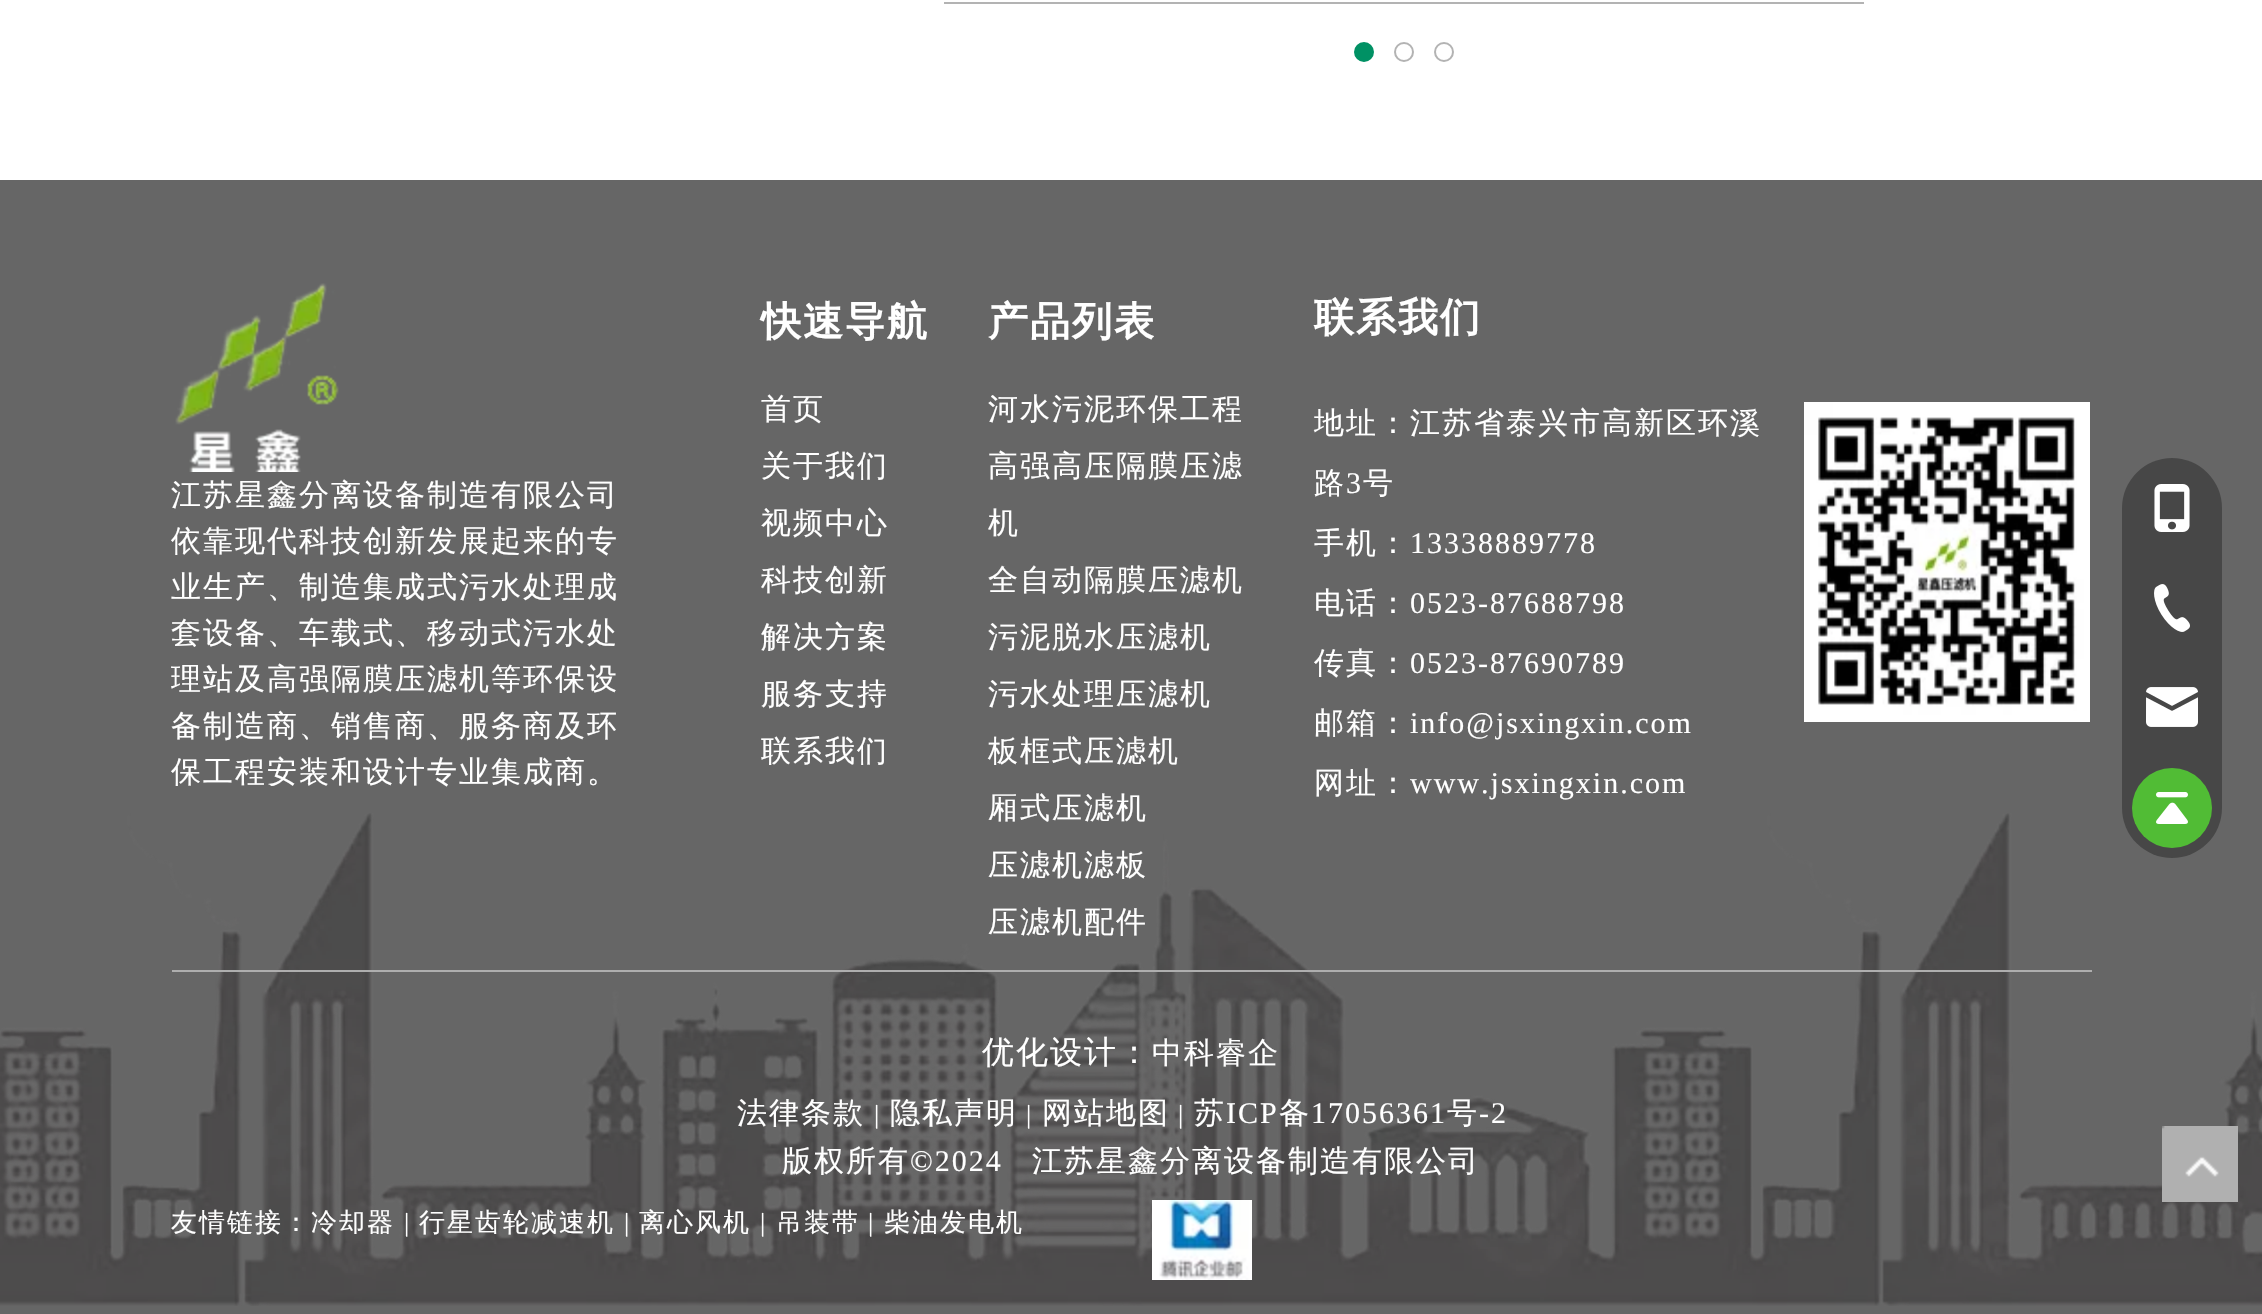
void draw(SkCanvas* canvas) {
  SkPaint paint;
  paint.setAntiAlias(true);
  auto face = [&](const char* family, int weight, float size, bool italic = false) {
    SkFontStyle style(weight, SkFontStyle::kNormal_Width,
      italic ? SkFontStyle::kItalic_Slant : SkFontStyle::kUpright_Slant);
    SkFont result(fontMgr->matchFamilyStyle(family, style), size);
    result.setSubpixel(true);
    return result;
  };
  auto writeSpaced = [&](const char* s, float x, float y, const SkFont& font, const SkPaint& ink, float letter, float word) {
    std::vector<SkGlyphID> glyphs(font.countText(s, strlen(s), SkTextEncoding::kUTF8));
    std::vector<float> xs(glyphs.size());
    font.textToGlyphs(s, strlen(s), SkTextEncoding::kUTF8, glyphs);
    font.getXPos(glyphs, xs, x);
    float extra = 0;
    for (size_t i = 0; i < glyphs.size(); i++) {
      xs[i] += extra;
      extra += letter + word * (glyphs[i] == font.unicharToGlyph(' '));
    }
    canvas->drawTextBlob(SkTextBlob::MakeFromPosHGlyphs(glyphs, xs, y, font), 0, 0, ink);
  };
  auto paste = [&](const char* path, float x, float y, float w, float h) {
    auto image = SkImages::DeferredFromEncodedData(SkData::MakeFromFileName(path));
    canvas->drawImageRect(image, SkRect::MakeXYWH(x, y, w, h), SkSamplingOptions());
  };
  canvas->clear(0xffffffff);
  paint.setColor(0xffb3b3b3);
  canvas->drawRect(SkRect::MakeXYWH(944, 2, 920, 2), paint);
  paint.setColor(0xff009164);
  canvas->drawCircle(1364, 52, 9, paint);
  paint.setStroke(true);
  paint.setStrokeWidth(2);
  canvas->drawCircle(1364, 52, 9, paint);
  paint.setColor(0xffb3b3b3);
  canvas->drawCircle(1404, 52, 9, paint);
  canvas->drawCircle(1444, 52, 9, paint);
  paint.setStroke(false);
  paint.setColor(0xff666666);
  canvas->drawRect(SkRect::MakeXYWH(0, 180, 2262, 1134), paint);
  paste("img/1.png", 0, 813, 2262, 493);
  paste("img/2.png", 175, 283, 164, 189);
  paint.setColor(0xff474747);
  canvas->drawRoundRect(SkRect::MakeXYWH(2122, 458, 100, 400), 50, 50, paint);
  paste("img/3.png", 2154, 484, 36, 48);
  paste("img/4.png", 2154, 584, 36, 48);
  paste("img/5.png", 2146, 687, 52, 40);
  paint.setColor(0xff51bc35);
  canvas->drawCircle(2172, 808, 40, paint);
  paste("img/6.png", 2156, 792, 32, 32);
  paste("img/7.png", 1804, 402, 286, 320);
  paint.setColor(0xffaeaeae);
  canvas->drawRect(SkRect::MakeXYWH(172, 970, 1920, 2), paint);
  paste("img/8.png", 1152, 1200, 100, 80);
  paste("img/9.png", 2162, 1126, 76, 76);
  auto f0 = face("WenQuanYi Zen Hei", 500, 30);
  paint.setColor(0xffffffff);
  {
    const struct { const char* s; float x, y; } items[] = {
      {"江苏星鑫分离设备制造有限公司", 171, 505},
      {"依靠现代科技创新发展起来的专", 171, 551},
      {"业生产、制造集成式污水处理成", 171, 597},
      {"套设备、车载式、移动式污水处", 171, 643},
      {"理站及高强隔膜压滤机等环保设", 171, 689},
      {"备制造商、销售商、服务商及环", 171, 736},
      {"保工程安装和设计专业集成商。", 171, 782},
    };
    for (auto [s, x, y] : items) {
      writeSpaced(s, x, y, f0, paint, 2, 0);
    }
  }
  auto f1 = face("WenQuanYi Zen Hei", 700, 40);
  writeSpaced("快速导航", 761, 335, f1, paint, 2, 0);
  {
    const struct { const char* s; float x, y; } items[] = {
      {"首页", 761, 419},
      {"关于我们", 761, 476},
      {"视频中心", 761, 533},
      {"科技创新", 761, 590},
      {"解决方案", 761, 647},
      {"服务支持", 761, 704},
      {"联系我们", 761, 761},
    };
    for (auto [s, x, y] : items) {
      writeSpaced(s, x, y, f0, paint, 2, 0);
    }
  }
  writeSpaced("产品列表", 988, 335, f1, paint, 2, 0);
  {
    const struct { const char* s; float x, y; } items[] = {
      {"河水污泥环保工程", 988, 419},
      {"高强高压隔膜压滤", 988, 476},
      {"机", 988, 533},
      {"全自动隔膜压滤机", 988, 590},
      {"污泥脱水压滤机", 988, 647},
      {"污水处理压滤机", 988, 704},
      {"板框式压滤机", 988, 761},
      {"厢式压滤机", 988, 818},
      {"压滤机滤板", 988, 875},
      {"压滤机配件", 988, 932},
    };
    for (auto [s, x, y] : items) {
      writeSpaced(s, x, y, f0, paint, 2, 0);
    }
  }
  writeSpaced("联系我们", 1314, 331, f1, paint, 2, 0);
  writeSpaced("地址：江苏省泰兴市高新区环溪", 1314, 433, f0, paint, 2, 0);
  writeSpaced("路", 1314, 493, f0, paint, 2, 0);
  auto f2 = face("Liberation Serif", 400, 30);
  writeSpaced("3", 1346, 493, f2, paint, 2, 0);
  writeSpaced("号", 1363, 493, f0, paint, 2, 0);
  writeSpaced("手机：", 1314, 553, f0, paint, 2, 0);
  writeSpaced("13338889778", 1410, 553, f2, paint, 2, 0);
  writeSpaced("电话：", 1314, 613, f0, paint, 2, 0);
  writeSpaced("0523-87688798", 1410, 613, f2, paint, 2, 0);
  writeSpaced("传真：", 1314, 673, f0, paint, 2, 0);
  writeSpaced("0523-87690789", 1410, 673, f2, paint, 2, 0);
  writeSpaced("邮箱：", 1314, 733, f0, paint, 2, 0);
  writeSpaced("info@jsxingxin.com", 1410, 733, f2, paint, 2, 0);
  writeSpaced("网址：", 1314, 793, f0, paint, 2, 0);
  writeSpaced("www.jsxingxin.com", 1410, 793, f2, paint, 2, 0);
  auto f3 = face("WenQuanYi Zen Hei", 500, 32);
  writeSpaced("优化设计：", 982, 1063, f3, paint, 2, 0);
  writeSpaced("中科睿企", 1152, 1063, f0, paint, 2, 0);
  writeSpaced("法律条款", 737, 1123, f0, paint, 2, 0);
  auto f4 = face("Liberation Serif", 400, 26);
  writeSpaced("|", 874, 1123, f4, paint, 2, 0);
  writeSpaced("隐私声明", 890, 1123, f0, paint, 2, 0);
  writeSpaced("|", 1026, 1123, f4, paint, 2, 0);
  writeSpaced("网站地图", 1042, 1123, f0, paint, 2, 0);
  writeSpaced("|", 1178, 1123, f4, paint, 2, 0);
  writeSpaced("苏", 1194, 1123, f0, paint, 2, 0);
  writeSpaced("ICP", 1226, 1123, f2, paint, 2, 0);
  writeSpaced("备", 1279, 1123, f0, paint, 2, 0);
  writeSpaced("17056361", 1311, 1123, f2, paint, 2, 0);
  writeSpaced("号", 1447, 1123, f0, paint, 2, 0);
  writeSpaced("-2", 1479, 1123, f2, paint, 2, 0);
  writeSpaced("版权所有", 782, 1171, f0, paint, 2, 0);
  writeSpaced("©2024", 910, 1171, f2, paint, 2, 0);
  writeSpaced("江苏星鑫分离设备制造有限公司", 1032, 1171, f0, paint, 2, 0);
  auto f5 = face("WenQuanYi Zen Hei", 500, 26);
  writeSpaced("友情链接：冷却器", 171, 1231, f5, paint, 2, 0);
  writeSpaced("|", 404, 1231, f4, paint, 2, 0);
  writeSpaced("行星齿轮减速机", 419, 1231, f5, paint, 2, 0);
  writeSpaced("|", 624, 1231, f4, paint, 2, 0);
  writeSpaced("离心风机", 639, 1231, f5, paint, 2, 0);
  writeSpaced("|", 760, 1231, f4, paint, 2, 0);
  writeSpaced("吊装带", 776, 1231, f5, paint, 2, 0);
  writeSpaced("|", 868, 1231, f4, paint, 2, 0);
  writeSpaced("柴油发电机", 884, 1231, f5, paint, 2, 0);
}
